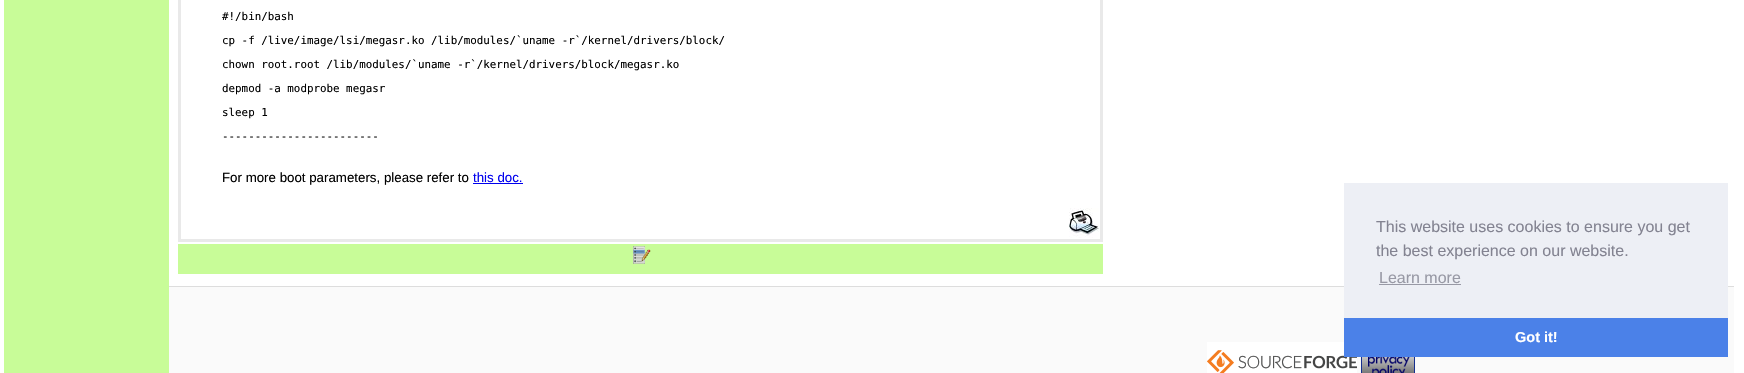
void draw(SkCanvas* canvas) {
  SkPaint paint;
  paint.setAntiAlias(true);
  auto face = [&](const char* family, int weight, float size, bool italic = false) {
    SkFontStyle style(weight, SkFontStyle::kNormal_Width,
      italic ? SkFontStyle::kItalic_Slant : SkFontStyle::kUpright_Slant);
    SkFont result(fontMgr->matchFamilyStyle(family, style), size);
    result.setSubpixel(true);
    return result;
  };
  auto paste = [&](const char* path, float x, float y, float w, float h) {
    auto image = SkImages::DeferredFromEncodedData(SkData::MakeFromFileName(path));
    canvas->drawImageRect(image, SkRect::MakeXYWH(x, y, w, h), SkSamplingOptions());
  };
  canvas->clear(0xffffffff);
  {
    const struct { float x, y, w, h; SkColor color; } items[] = {
      {4, 0, 165, 373, 0xffc8fc98},
      {178, 0, 925, 242, 0xffe9e9e9},
      {181, 0, 919, 239, 0xffffffff},
      {473, 183, 50, 1, 0xff0000ee},
    };
    for (auto [x, y, w, h, color] : items) {
      paint.setColor(color);
      canvas->drawRect(SkRect::MakeXYWH(x, y, w, h), paint);
    }
  }
  paste("img/1.png", 1069, 208, 30, 30);
  paint.setColor(0xffc8fc98);
  canvas->drawRect(SkRect::MakeXYWH(178, 244, 925, 30), paint);
  paste("img/2.png", 633, 246, 18, 18);
  paint.setColor(0xfffafafa);
  canvas->drawRect(SkRect::MakeXYWH(169, 287, 1565, 86), paint);
  paint.setColor(0xffdddddd);
  canvas->drawRect(SkRect::MakeXYWH(169, 286, 1565, 1), paint);
  paste("img/3.png", 1207, 342, 150, 31);
  paste("img/4.png", 1361, 357, 54, 16);
  {
    const struct { float x, y, w, h; SkColor color; } items[] = {
      {1344, 183, 384, 135, 0xffedeff5},
      {1379, 284, 82, 1, 0xff9899a5},
      {1344, 318, 384, 39, 0xff4b81e8},
    };
    for (auto [x, y, w, h, color] : items) {
      paint.setColor(color);
      canvas->drawRect(SkRect::MakeXYWH(x, y, w, h), paint);
    }
  }
  auto f0 = face("DejaVu Sans Mono", 400, 10.85f);
  paint.setColor(0xff000000);
  {
    const struct { const char* s; float x, y; } items[] = {
      {"#!/bin/bash", 222, 20},
      {"cp -f /live/image/lsi/megasr.ko /lib/modules/`uname -r`/kernel/drivers/block/", 222, 44},
      {"chown root.root /lib/modules/`uname -r`/kernel/drivers/block/megasr.ko", 222, 68},
      {"depmod -a modprobe megasr", 222, 92},
      {"sleep 1", 222, 116},
      {"------------------------", 222, 140},
    };
    for (auto [s, x, y] : items) {
      canvas->drawString(s, x, y, f0, paint);
    }
  }
  auto f1 = face("Liberation Sans", 400, 13.3f);
  canvas->drawString("For more boot parameters, please refer to", 222, 182, f1, paint);
  paint.setColor(0xff0000ee);
  canvas->drawString("this doc.", 473, 182, f1, paint);
  auto f2 = face("Liberation Sans", 400, 16);
  paint.setColor(0xff838391);
  canvas->drawString("This website uses cookies to ensure you get", 1376, 232, f2, paint);
  canvas->drawString("the best experience on our website.", 1376, 256, f2, paint);
  paint.setColor(0xff9899a5);
  canvas->drawString("Learn more", 1379, 283, f2, paint);
  auto f3 = face("Liberation Sans", 700, 14.5f);
  paint.setColor(0xffffffff);
  canvas->drawString("Got it!", 1515, 342, f3, paint);
}
